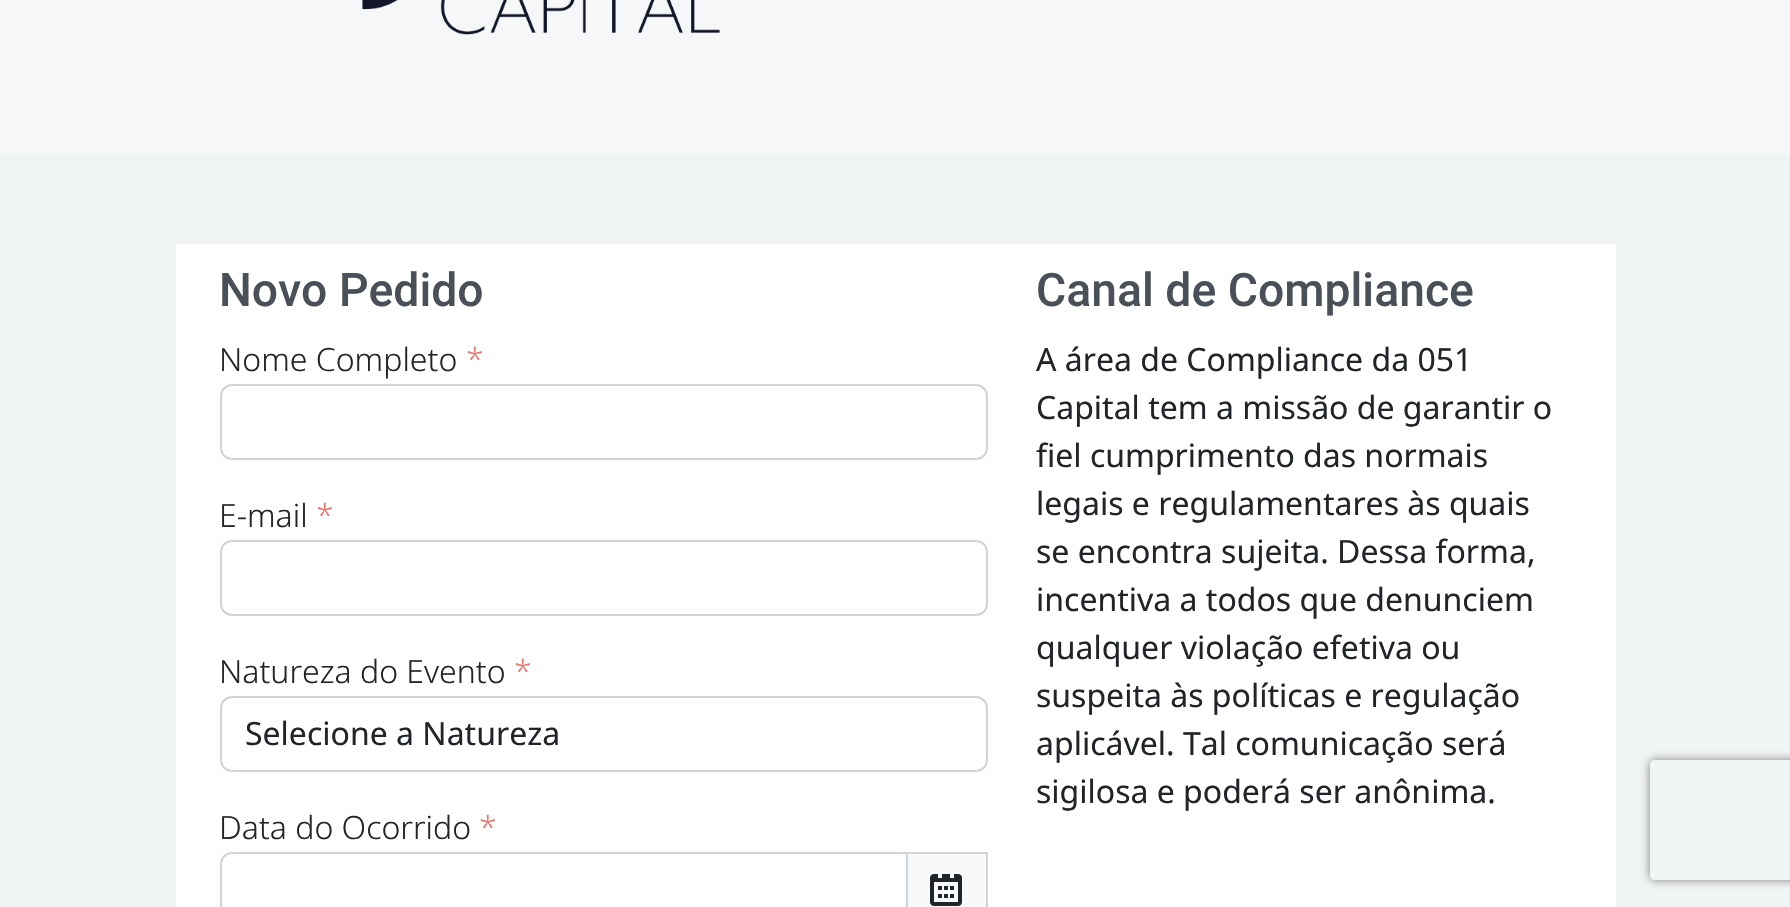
void draw(SkCanvas* canvas) {
  SkPaint paint;
  paint.setAntiAlias(true);
  auto face = [&](const char* family, int weight, float size, bool italic = false) {
    SkFontStyle style(weight, SkFontStyle::kNormal_Width,
      italic ? SkFontStyle::kItalic_Slant : SkFontStyle::kUpright_Slant);
    SkFont result(fontMgr->matchFamilyStyle(family, style), size);
    result.setSubpixel(true);
    return result;
  };
  auto paste = [&](const char* path, float x, float y, float w, float h) {
    auto image = SkImages::DeferredFromEncodedData(SkData::MakeFromFileName(path));
    canvas->drawImageRect(image, SkRect::MakeXYWH(x, y, w, h), SkSamplingOptions());
  };
  auto shape = [&](const char* data, bool evenOdd = false) {
    SkPath result = *SkParsePath::FromSVGString(data);
    if (evenOdd) result.setFillType(SkPathFillType::kEvenOdd);
    return result;
  };
  canvas->clear(0xfff1f4f5);
  paint.setColor(0xfff6f7f9);
  canvas->drawRect(SkRect::MakeXYWH(0, 0, 1790, 154), paint);
  paste("img/1.png", 362, 0, 358, 35);
  paint.setColor(0xffffffff);
  canvas->drawRect(SkRect::MakeXYWH(176, 244, 1440, 663), paint);
  paint.setStroke(true);
  paint.setStrokeWidth(2);
  paint.setColor(0xffced4da);
  canvas->drawRoundRect(SkRect::MakeXYWH(221, 385, 766, 74), 11, 11, paint);
  canvas->drawRoundRect(SkRect::MakeXYWH(221, 541, 766, 74), 11, 11, paint);
  canvas->drawRoundRect(SkRect::MakeXYWH(221, 697, 766, 74), 11, 11, paint);
  paint.setStroke(false);
  canvas->drawRect(SkRect::MakeXYWH(906, 852, 82, 2), paint);
  paint.setStroke(true);
  canvas->drawPath(shape("M232 853H907V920H232C226 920 221 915 221 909V864C221 858 226 853 232 853Z"), paint);
  paint.setStroke(false);
  paint.setColor(0xfff8f9fa);
  canvas->drawRect(SkRect::MakeXYWH(908, 854, 78, 53), paint);
  paint.setColor(0xffced4da);
  canvas->drawRect(SkRect::MakeXYWH(986, 852, 2, 55), paint);
  paste("img/2.png", 930, 874, 32, 32);
  canvas->save();
  canvas->clipPath(shape("M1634 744H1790V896H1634ZM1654 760H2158C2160 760 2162 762 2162 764V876C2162 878 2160 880 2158 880H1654C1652 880 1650 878 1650 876V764C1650 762 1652 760 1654 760Z", true), true);
  paint.setColor(0xff808080);
  paint.setMaskFilter(SkMaskFilter::MakeBlur(kNormal_SkBlurStyle, 5));
  canvas->drawRoundRect(SkRect::MakeXYWH(1650, 760, 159, 120), 4, 4, paint);
  paint.setMaskFilter(nullptr);
  canvas->restore();
  auto f0 = face("Roboto", 500, 46.25f);
  paint.setColor(0xff495057);
  canvas->drawString("Novo Pedido", 219, 306, f0, paint);
  auto f1 = face("Noto Sans", 300, 32);
  paint.setColor(0xff212529);
  canvas->drawString("Nome Completo", 219, 371, f1, paint);
  paint.setColor(0xffea7870);
  canvas->drawString("*", 466, 371, f1, paint);
  paint.setColor(0xff212529);
  canvas->drawString("E-mail", 219, 527, f1, paint);
  paint.setColor(0xffea7870);
  canvas->drawString("*", 316, 527, f1, paint);
  paint.setColor(0xff212529);
  canvas->drawString("Natureza do Evento", 219, 683, f1, paint);
  paint.setColor(0xffea7870);
  canvas->drawString("*", 514, 683, f1, paint);
  auto f2 = face("Noto Sans", 400, 32);
  paint.setColor(0xff212529);
  canvas->drawString("Selecione a Natureza", 245, 745, f2, paint);
  canvas->drawString("Data do Ocorrido", 219, 839, f1, paint);
  paint.setColor(0xffea7870);
  canvas->drawString("*", 479, 839, f1, paint);
  paint.setColor(0xff495057);
  canvas->drawString("Canal de Compliance", 1036, 306, f0, paint);
  paint.setColor(0xff212529);
  {
    const struct { const char* s; float x, y; } items[] = {
      {"A área de Compliance da 051", 1036, 371},
      {"Capital tem a missão de garantir o", 1036, 419},
      {"fiel cumprimento das normais", 1036, 467},
      {"legais e regulamentares às quais", 1036, 515},
      {"se encontra sujeita. Dessa forma,", 1036, 563},
      {"incentiva a todos que denunciem", 1036, 611},
      {"qualquer violação efetiva ou", 1036, 659},
      {"suspeita às políticas e regulação", 1036, 707},
      {"aplicável. Tal comunicação será", 1036, 755},
      {"sigilosa e poderá ser anônima.", 1036, 803},
    };
    for (auto [s, x, y] : items) {
      canvas->drawString(s, x, y, f2, paint);
    }
  }
}
